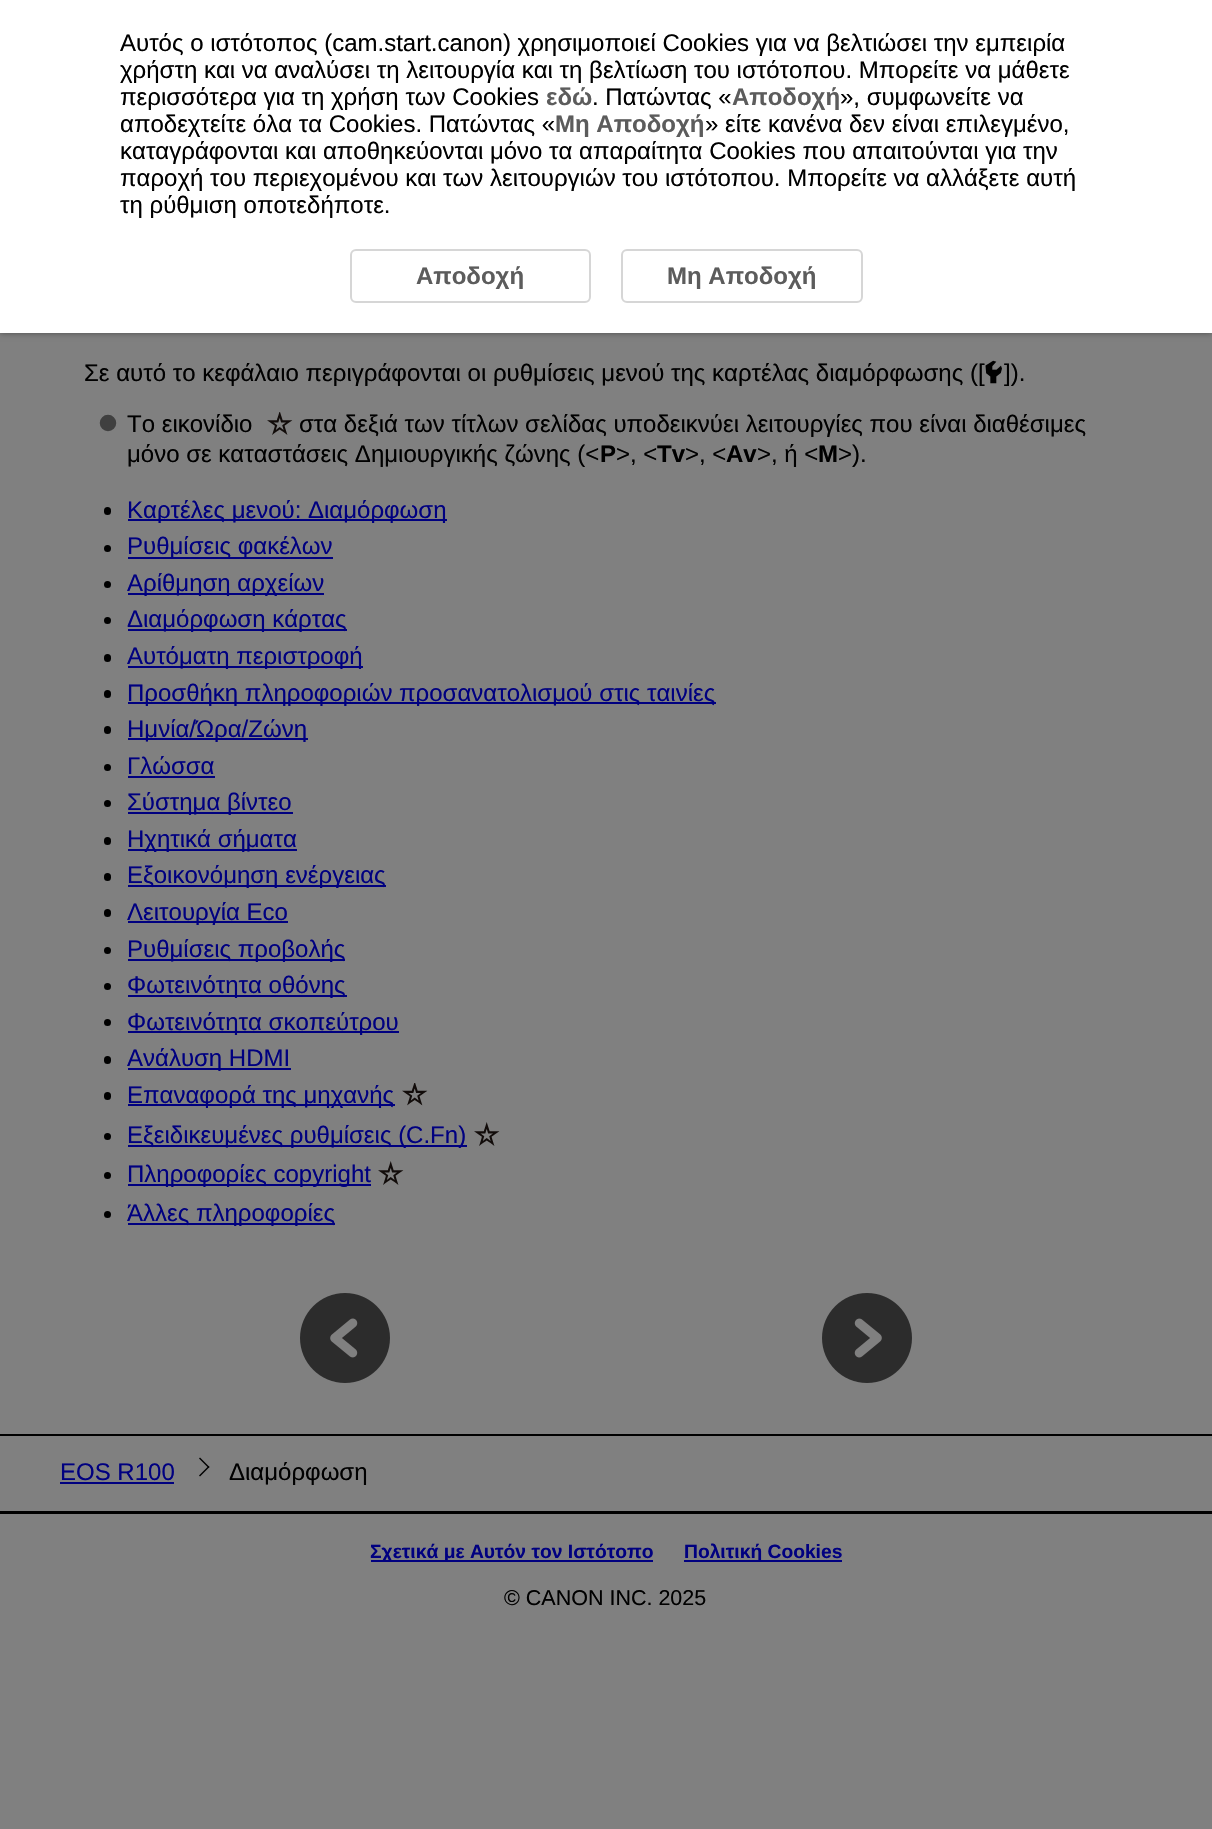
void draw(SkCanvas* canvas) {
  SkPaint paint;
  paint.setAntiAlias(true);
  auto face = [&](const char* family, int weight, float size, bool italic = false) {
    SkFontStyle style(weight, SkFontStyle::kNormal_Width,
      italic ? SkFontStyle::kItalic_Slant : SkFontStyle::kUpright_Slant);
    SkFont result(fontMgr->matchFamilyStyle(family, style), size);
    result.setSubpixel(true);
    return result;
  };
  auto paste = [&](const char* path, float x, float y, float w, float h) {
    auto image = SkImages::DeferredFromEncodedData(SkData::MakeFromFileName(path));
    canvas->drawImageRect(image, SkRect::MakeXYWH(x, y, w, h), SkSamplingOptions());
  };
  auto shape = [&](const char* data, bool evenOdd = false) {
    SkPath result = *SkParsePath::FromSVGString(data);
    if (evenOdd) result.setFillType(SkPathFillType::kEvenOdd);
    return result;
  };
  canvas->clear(0xff808080);
  paint.setColor(0x66000000);
  paint.setMaskFilter(SkMaskFilter::MakeBlur(kNormal_SkBlurStyle, 3));
  canvas->drawRect(SkRect::MakeXYWH(0, 0, 1212, 333), paint);
  paint.setMaskFilter(nullptr);
  paint.setColor(0xffffffff);
  canvas->drawRect(SkRect::MakeXYWH(0, 0, 1212, 333), paint);
  paint.setStroke(true);
  paint.setStrokeWidth(2);
  paint.setColor(0xffd6d6d6);
  canvas->drawRoundRect(SkRect::MakeXYWH(351, 250, 239, 52), 5, 5, paint);
  canvas->drawRoundRect(SkRect::MakeXYWH(622, 250, 240, 52), 5, 5, paint);
  paste("img/1.png", 985, 360, 17, 24);
  paste("img/2.png", 99, 414, 18, 18);
  paste("img/3.png", 267, 412, 26, 23);
  paint.setStroke(false);
  paint.setColor(0xff000000);
  canvas->drawRoundRect(SkRect::MakeXYWH(104, 507, 7, 8), 3.5f, 3.5f, paint);
  paint.setColor(0xff000080);
  canvas->drawRect(SkRect::MakeXYWH(128, 519, 319, 2), paint);
  paint.setColor(0xff000000);
  canvas->drawCircle(107.5f, 548.5f, 3.5f, paint);
  paint.setColor(0xff000080);
  canvas->drawRect(SkRect::MakeXYWH(128, 557, 205, 2), paint);
  paint.setColor(0xff000000);
  canvas->drawCircle(107.5f, 584.5f, 3.5f, paint);
  paint.setColor(0xff000080);
  canvas->drawRect(SkRect::MakeXYWH(128, 593, 196, 2), paint);
  paint.setColor(0xff000000);
  canvas->drawCircle(107.5f, 620.5f, 3.5f, paint);
  paint.setColor(0xff000080);
  canvas->drawRect(SkRect::MakeXYWH(128, 629, 219, 2), paint);
  paint.setColor(0xff000000);
  canvas->drawRoundRect(SkRect::MakeXYWH(104, 654, 7, 8), 3.5f, 3.5f, paint);
  paint.setColor(0xff000080);
  canvas->drawRect(SkRect::MakeXYWH(128, 666, 235, 2), paint);
  paint.setColor(0xff000000);
  canvas->drawRoundRect(SkRect::MakeXYWH(104, 690, 7, 8), 3.5f, 3.5f, paint);
  paint.setColor(0xff000080);
  canvas->drawRect(SkRect::MakeXYWH(128, 702, 588, 2), paint);
  paint.setColor(0xff000000);
  canvas->drawRoundRect(SkRect::MakeXYWH(104, 726, 7, 8), 3.5f, 3.5f, paint);
  paint.setColor(0xff000080);
  canvas->drawRect(SkRect::MakeXYWH(128, 738, 180, 2), paint);
  paint.setColor(0xff000000);
  canvas->drawCircle(107.5f, 767.5f, 3.5f, paint);
  paint.setColor(0xff000080);
  canvas->drawRect(SkRect::MakeXYWH(128, 776, 87, 2), paint);
  paint.setColor(0xff000000);
  canvas->drawCircle(107.5f, 803.5f, 3.5f, paint);
  paint.setColor(0xff000080);
  canvas->drawRect(SkRect::MakeXYWH(128, 812, 165, 2), paint);
  paint.setColor(0xff000000);
  canvas->drawRoundRect(SkRect::MakeXYWH(104, 837, 7, 8), 3.5f, 3.5f, paint);
  paint.setColor(0xff000080);
  canvas->drawRect(SkRect::MakeXYWH(128, 849, 169, 2), paint);
  paint.setColor(0xff000000);
  canvas->drawRoundRect(SkRect::MakeXYWH(104, 873, 7, 8), 3.5f, 3.5f, paint);
  paint.setColor(0xff000080);
  canvas->drawRect(SkRect::MakeXYWH(128, 885, 258, 2), paint);
  paint.setColor(0xff000000);
  canvas->drawRoundRect(SkRect::MakeXYWH(104, 909, 7, 8), 3.5f, 3.5f, paint);
  paint.setColor(0xff000080);
  canvas->drawRect(SkRect::MakeXYWH(128, 921, 160, 2), paint);
  paint.setColor(0xff000000);
  canvas->drawCircle(107.5f, 950.5f, 3.5f, paint);
  paint.setColor(0xff000080);
  canvas->drawRect(SkRect::MakeXYWH(128, 959, 217, 2), paint);
  paint.setColor(0xff000000);
  canvas->drawCircle(107.5f, 986.5f, 3.5f, paint);
  paint.setColor(0xff000080);
  canvas->drawRect(SkRect::MakeXYWH(128, 995, 219, 2), paint);
  paint.setColor(0xff000000);
  canvas->drawCircle(107.5f, 1022.5f, 3.5f, paint);
  paint.setColor(0xff000080);
  canvas->drawRect(SkRect::MakeXYWH(128, 1031, 271, 2), paint);
  paint.setColor(0xff000000);
  canvas->drawRoundRect(SkRect::MakeXYWH(104, 1056, 7, 8), 3.5f, 3.5f, paint);
  paint.setColor(0xff000080);
  canvas->drawRect(SkRect::MakeXYWH(128, 1068, 163, 2), paint);
  paint.setColor(0xff000000);
  canvas->drawRoundRect(SkRect::MakeXYWH(104, 1092, 7, 8), 3.5f, 3.5f, paint);
  paint.setColor(0xff000080);
  canvas->drawRect(SkRect::MakeXYWH(128, 1104, 267, 2), paint);
  paste("img/4.png", 402, 1083, 26, 23);
  paint.setColor(0xff000000);
  canvas->drawCircle(107.5f, 1136.5f, 3.5f, paint);
  paint.setColor(0xff000080);
  canvas->drawRect(SkRect::MakeXYWH(128, 1145, 339, 2), paint);
  paste("img/5.png", 474, 1122, 26, 24);
  paint.setColor(0xff000000);
  canvas->drawCircle(107.5f, 1175.5f, 3.5f, paint);
  paint.setColor(0xff000080);
  canvas->drawRect(SkRect::MakeXYWH(128, 1184, 243, 2), paint);
  paste("img/5.png", 378, 1161, 26, 24);
  paint.setColor(0xff000000);
  canvas->drawCircle(107.5f, 1214.5f, 3.5f, paint);
  paint.setColor(0xff000080);
  canvas->drawRect(SkRect::MakeXYWH(128, 1223, 207, 2), paint);
  paste("img/6.png", 300, 1293, 90, 90);
  paste("img/7.png", 822, 1293, 90, 90);
  {
    const struct { float x, y, w, h; SkColor color; } items[] = {
      {0, 1434, 1212, 2, 0xff000000},
      {0, 1511, 1212, 3, 0xff000000},
      {60, 1482, 114, 2, 0xff000080},
    };
    for (auto [x, y, w, h, color] : items) {
      paint.setColor(color);
      canvas->drawRect(SkRect::MakeXYWH(x, y, w, h), paint);
    }
  }
  paint.setColor(0xff000000);
  canvas->drawPath(shape("M200 1457.5L209.5 1467L208.5 1468L199 1458.5Z"), paint);
  canvas->drawPath(shape("M208.5 1466L209.5 1467L200 1476.5L199 1475.5Z"), paint);
  paint.setColor(0xff000080);
  canvas->drawRect(SkRect::MakeXYWH(371, 1560, 282, 2), paint);
  canvas->drawRect(SkRect::MakeXYWH(684, 1560, 158, 2), paint);
  auto f0 = face("Liberation Sans", 400, 24);
  paint.setColor(0xff000000);
  {
    const struct { const char* s; float x, y; } items[] = {
      {"Αυτός ο ιστότοπος (cam.start.canon) χρησιμοποιεί Cookies για να βελτιώσει την εμπειρία", 120, 51},
      {"χρήστη και να αναλύσει τη λειτουργία και τη βελτίωση του ιστότοπου. Μπορείτε να μάθετε", 120, 78},
      {"περισσότερα για τη χρήση των Cookies", 120, 105},
    };
    for (auto [s, x, y] : items) {
      canvas->drawString(s, x, y, f0, paint);
    }
  }
  auto f1 = face("Liberation Sans", 700, 24);
  paint.setColor(0xff5c5c5c);
  canvas->drawString("εδώ", 546, 105, f1, paint);
  paint.setColor(0xff000000);
  canvas->drawString(". Πατώντας «", 592, 105, f0, paint);
  paint.setColor(0xff5c5c5c);
  canvas->drawString("Αποδοχή", 732, 105, f1, paint);
  paint.setColor(0xff000000);
  canvas->drawString("», συμφωνείτε να", 840, 105, f0, paint);
  canvas->drawString("αποδεχτείτε όλα τα Cookies. Πατώντας «", 120, 132, f0, paint);
  paint.setColor(0xff5c5c5c);
  canvas->drawString("Μη Αποδοχή", 555, 132, f1, paint);
  paint.setColor(0xff000000);
  {
    const struct { const char* s; float x, y; } items[] = {
      {"» είτε κανένα δεν είναι επιλεγμένο,", 705, 132},
      {"καταγράφονται και αποθηκεύονται μόνο τα απαραίτητα Cookies που απαιτούνται για την", 120, 159},
      {"παροχή του περιεχομένου και των λειτουργιών του ιστότοπου. Μπορείτε να αλλάξετε αυτή", 120, 186},
      {"τη ρύθμιση οποτεδήποτε.", 120, 213},
    };
    for (auto [s, x, y] : items) {
      canvas->drawString(s, x, y, f0, paint);
    }
  }
  paint.setColor(0xff5c5c5c);
  canvas->drawString("Αποδοχή", 416, 284, f1, paint);
  canvas->drawString("Μη Αποδοχή", 667, 284, f1, paint);
  paint.setColor(0xff000000);
  {
    const struct { const char* s; float x, y; } items[] = {
      {"Σε αυτό το κεφάλαιο περιγράφονται οι ρυθμίσεις μενού της καρτέλας διαμόρφωσης ([", 84, 381},
      {"]).", 1004, 381},
      {"Το εικονίδιο", 127, 432},
      {"στα δεξιά των τίτλων σελίδας υποδεικνύει λειτουργίες που είναι διαθέσιμες", 299, 432},
      {"μόνο σε καταστάσεις Δημιουργικής ζώνης (<", 127, 462},
    };
    for (auto [s, x, y] : items) {
      canvas->drawString(s, x, y, f0, paint);
    }
  }
  canvas->drawString("P", 600, 462, f1, paint);
  canvas->drawString(">, <", 616, 462, f0, paint);
  canvas->drawString("Tv", 657, 462, f1, paint);
  canvas->drawString(">, <", 685, 462, f0, paint);
  canvas->drawString("Av", 726, 462, f1, paint);
  canvas->drawString(">, ή <", 757, 462, f0, paint);
  canvas->drawString("M", 818, 462, f1, paint);
  canvas->drawString(">).", 838, 462, f0, paint);
  paint.setColor(0xff000080);
  {
    const struct { const char* s; float x, y; } items[] = {
      {"Καρτέλες μενού: Διαμόρφωση", 127, 518},
      {"Ρυθμίσεις φακέλων", 127, 554},
      {"Αρίθμηση αρχείων", 127, 591},
      {"Διαμόρφωση κάρτας", 127, 627},
      {"Αυτόματη περιστροφή", 127, 664},
      {"Προσθήκη πληροφοριών προσανατολισμού στις ταινίες", 127, 701},
      {"Ημνία/Ώρα/Ζώνη", 127, 737},
      {"Γλώσσα", 127, 774},
      {"Σύστημα βίντεο", 127, 810},
      {"Ηχητικά σήματα", 127, 847},
      {"Εξοικονόμηση ενέργειας", 127, 883},
      {"Λειτουργία Eco", 127, 920},
      {"Ρυθμίσεις προβολής", 127, 957},
      {"Φωτεινότητα οθόνης", 127, 993},
      {"Φωτεινότητα σκοπεύτρου", 127, 1030},
      {"Ανάλυση HDMI", 127, 1066},
      {"Επαναφορά της μηχανής", 127, 1103},
      {"Εξειδικευμένες ρυθμίσεις (C.Fn)", 127, 1143},
      {"Πληροφορίες copyright", 127, 1182},
      {"Άλλες πληροφορίες", 127, 1221},
      {"EOS R100", 60, 1480},
    };
    for (auto [s, x, y] : items) {
      canvas->drawString(s, x, y, f0, paint);
    }
  }
  paint.setColor(0xff000000);
  canvas->drawString("Διαμόρφωση", 229, 1480, f0, paint);
  auto f2 = face("Liberation Sans", 700, 19.25f);
  paint.setColor(0xff000080);
  canvas->drawString("Σχετικά με Αυτόν τον Ιστότοπο", 370, 1558, f2, paint);
  canvas->drawString("Πολιτική Cookies", 684, 1558, f2, paint);
  auto f3 = face("Liberation Sans", 400, 21.5f);
  paint.setColor(0xff000000);
  canvas->drawString("© CANON INC. 2025", 504, 1605, f3, paint);
}
